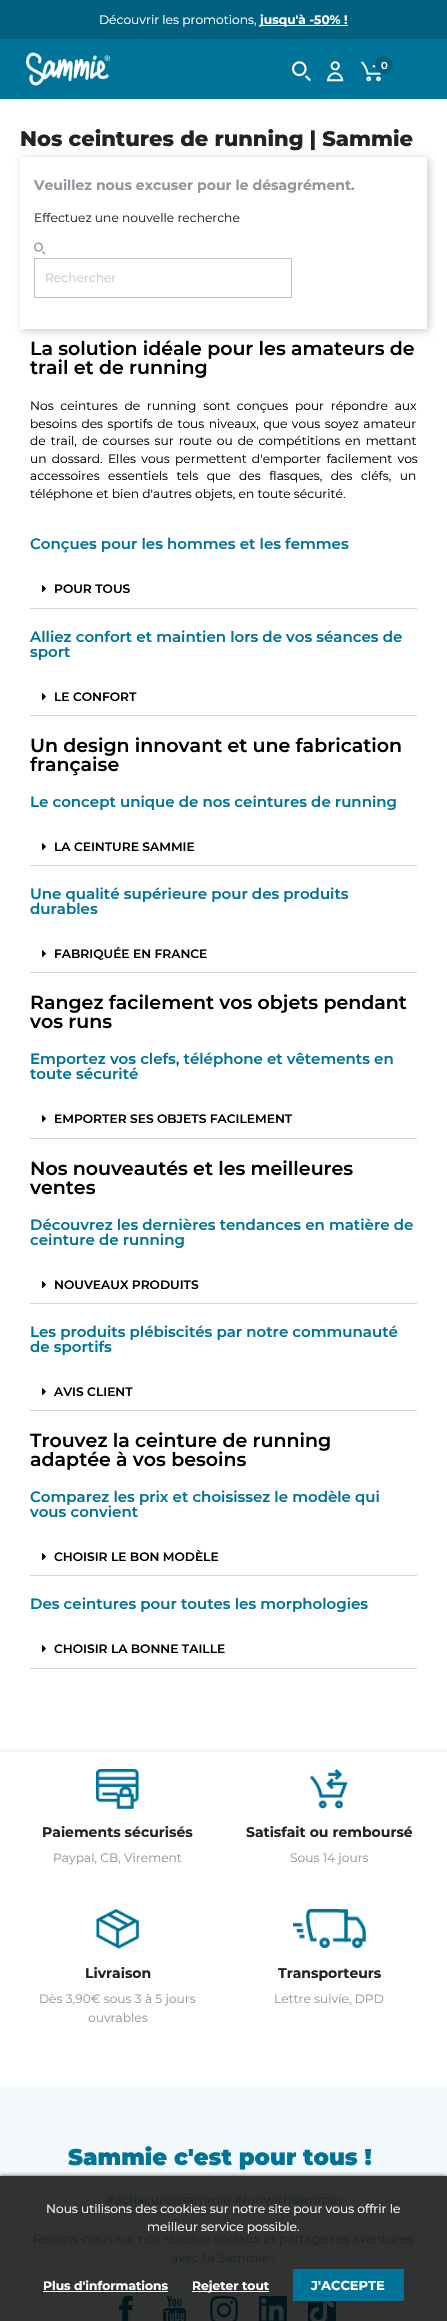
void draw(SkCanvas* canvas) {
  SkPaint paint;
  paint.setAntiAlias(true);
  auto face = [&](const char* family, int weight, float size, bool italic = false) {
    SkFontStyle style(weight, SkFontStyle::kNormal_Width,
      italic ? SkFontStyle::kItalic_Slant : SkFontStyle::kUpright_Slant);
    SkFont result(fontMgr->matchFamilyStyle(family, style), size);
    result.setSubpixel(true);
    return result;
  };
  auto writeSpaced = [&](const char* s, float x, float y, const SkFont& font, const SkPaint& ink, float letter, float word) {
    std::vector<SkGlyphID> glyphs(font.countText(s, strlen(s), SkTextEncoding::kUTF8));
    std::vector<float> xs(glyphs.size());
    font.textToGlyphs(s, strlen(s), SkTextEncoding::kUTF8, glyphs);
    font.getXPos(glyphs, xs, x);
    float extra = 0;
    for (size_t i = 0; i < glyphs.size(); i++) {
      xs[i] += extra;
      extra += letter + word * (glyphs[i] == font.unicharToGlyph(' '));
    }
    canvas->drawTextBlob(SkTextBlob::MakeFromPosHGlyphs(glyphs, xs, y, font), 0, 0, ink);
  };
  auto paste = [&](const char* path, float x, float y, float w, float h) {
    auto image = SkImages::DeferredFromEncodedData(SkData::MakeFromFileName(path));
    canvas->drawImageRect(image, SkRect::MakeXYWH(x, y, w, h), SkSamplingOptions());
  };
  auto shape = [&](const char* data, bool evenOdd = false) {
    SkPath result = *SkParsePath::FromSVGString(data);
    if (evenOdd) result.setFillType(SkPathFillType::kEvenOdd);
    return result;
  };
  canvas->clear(0xffffffff);
  {
    const struct { float x, y, w, h; SkColor color; } items[] = {
      {0, 0, 447, 39, 0xff00607f},
      {260, 25, 88, 1, 0xffffffff},
      {0, 39, 447, 60, 0xff007398},
    };
    for (auto [x, y, w, h, color] : items) {
      paint.setColor(color);
      canvas->drawRect(SkRect::MakeXYWH(x, y, w, h), paint);
    }
  }
  paste("img/1.png", 26, 52, 84, 34);
  paste("img/2.png", 292, 61, 19, 21);
  paste("img/3.png", 327, 61, 17, 21);
  paste("img/4.png", 361, 61, 20, 21);
  paint.setColor(0xff00607f);
  canvas->drawCircle(384, 65, 9, paint);
  canvas->save();
  canvas->clipPath(shape("M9 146H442V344H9ZM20 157H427V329H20Z", true), true);
  paint.setColor(0x33000000);
  paint.setMaskFilter(SkMaskFilter::MakeBlur(kNormal_SkBlurStyle, 4));
  canvas->drawRect(SkRect::MakeXYWH(22, 159, 407, 172), paint);
  paint.setMaskFilter(nullptr);
  canvas->restore();
  paste("img/5.png", 34, 242, 12, 13);
  paint.setStroke(true);
  paint.setStrokeWidth(1);
  paint.setColor(0xffbfbfbf);
  canvas->drawRect(SkRect::MakeXYWH(34.5f, 258.5f, 257, 39), paint);
  paint.setStroke(false);
  paint.setColor(0xffd4d4d4);
  canvas->drawRect(SkRect::MakeXYWH(30, 608, 387, 1), paint);
  paste("img/6.png", 42, 585, 4, 8);
  canvas->drawRect(SkRect::MakeXYWH(30, 715, 387, 1), paint);
  paste("img/6.png", 42, 693, 4, 8);
  canvas->drawRect(SkRect::MakeXYWH(30, 865, 387, 1), paint);
  paste("img/6.png", 42, 843, 4, 8);
  canvas->drawRect(SkRect::MakeXYWH(30, 972, 387, 1), paint);
  paste("img/6.png", 42, 950, 4, 8);
  canvas->drawRect(SkRect::MakeXYWH(30, 1138, 387, 1), paint);
  paste("img/6.png", 42, 1115, 4, 8);
  canvas->drawRect(SkRect::MakeXYWH(30, 1303, 387, 1), paint);
  paste("img/6.png", 42, 1281, 4, 8);
  canvas->drawRect(SkRect::MakeXYWH(30, 1410, 387, 1), paint);
  paste("img/6.png", 42, 1388, 4, 8);
  canvas->drawRect(SkRect::MakeXYWH(30, 1575, 387, 1), paint);
  paste("img/6.png", 42, 1553, 4, 8);
  canvas->drawRect(SkRect::MakeXYWH(30, 1668, 387, 1), paint);
  paste("img/6.png", 42, 1645, 4, 8);
  paint.setColor(0xfff3f8fb);
  canvas->drawRect(SkRect::MakeXYWH(0, 1749, 447, 3), paint);
  paste("img/7.png", 96, 1769, 43, 40);
  paste("img/8.png", 310, 1769, 38, 40);
  paste("img/9.png", 96, 1909, 43, 40);
  paste("img/10.png", 293, 1909, 73, 40);
  canvas->drawRect(SkRect::MakeXYWH(0, 2086, 447, 90), paint);
  paint.setColor(0xff313232);
  canvas->drawRect(SkRect::MakeXYWH(0, 2176, 447, 145), paint);
  paste("img/11.png", 119, 2296, 14, 25);
  paste("img/12.png", 163, 2296, 23, 25);
  paste("img/13.png", 210, 2296, 28, 25);
  paste("img/14.png", 259, 2296, 28, 25);
  paste("img/15.png", 308, 2301, 28, 20);
  canvas->save();
  canvas->clipRect(SkRect::MakeXYWH(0, 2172, 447, 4));
  paint.setColor(0xff000000);
  paint.setMaskFilter(SkMaskFilter::MakeBlur(kNormal_SkBlurStyle, 2.5f));
  canvas->drawRect(SkRect::MakeXYWH(0, 2177, 447, 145), paint);
  paint.setMaskFilter(nullptr);
  canvas->restore();
  {
    const struct { float x, y, w, h; SkColor color; } items[] = {
      {43, 2291, 125, 1, 0xffffffff},
      {192, 2291, 77, 1, 0xffffffff},
      {293, 2269, 111, 32, 0xff007398},
    };
    for (auto [x, y, w, h, color] : items) {
      paint.setColor(color);
      canvas->drawRect(SkRect::MakeXYWH(x, y, w, h), paint);
    }
  }
  auto f0 = face("Montserrat", 400, 12.25f);
  paint.setColor(0xffffffff);
  canvas->drawString("Découvrir les promotions,", 99, 24, f0, paint);
  auto f1 = face("Montserrat", 700, 12.25f);
  canvas->drawString("jusqu'à -50% !", 260, 24, f1, paint);
  auto f2 = face("Montserrat", 600, 10);
  canvas->drawString("0", 381, 69, f2, paint);
  auto f3 = face("Montserrat", 800, 21);
  paint.setColor(0xff232323);
  canvas->drawString("Nos ceintures de running | Sammie", 20, 146, f3, paint);
  auto f4 = face("Montserrat", 700, 14);
  paint.setColor(0xff93979d);
  canvas->drawString("Veuillez nous excuser pour le désagrément.", 34, 190, f4, paint);
  paint.setColor(0xff232323);
  canvas->drawString("Effectuez une nouvelle recherche", 34, 222, f0, paint);
  paint.setColor(0xffc5c7ca);
  canvas->drawString("Rechercher", 45, 282, f0, paint);
  auto f5 = face("Montserrat", 600, 19);
  paint.setColor(0xff000000);
  canvas->drawString("La solution idéale pour les amateurs de", 30, 355, f5, paint);
  canvas->drawString("trail et de running", 30, 374, f5, paint);
  writeSpaced("Nos ceintures de running sont conçues pour répondre aux", 30, 410, f0, paint, 0, 3.5f);
  writeSpaced("besoins des sportifs de tous niveaux, que vous soyez amateur", 30, 428, f0, paint, 0, 1.25f);
  writeSpaced("de trail, de courses sur route ou de compétitions en mettant", 30, 445, f0, paint, 0, 1.75f);
  writeSpaced("un dossard. Elles vous permettent d'emporter facilement vos", 30, 463, f0, paint, 0, 2);
  writeSpaced("accessoires essentiels tels que des flasques, des cléfs, un", 30, 480, f0, paint, 0, 5.25f);
  canvas->drawString("téléphone et bien d'autres objets, en toute sécurité.", 30, 498, f0, paint);
  auto f6 = face("Montserrat", 600, 15);
  paint.setColor(0xff007398);
  canvas->drawString("Conçues pour les hommes et les femmes", 30, 549, f6, paint);
  auto f7 = face("Montserrat", 600, 12.25f);
  paint.setColor(0xff000000);
  canvas->drawString("POUR TOUS", 54, 593, f7, paint);
  paint.setColor(0xff007398);
  canvas->drawString("Alliez confort et maintien lors de vos séances de", 30, 642, f6, paint);
  canvas->drawString("sport", 30, 657, f6, paint);
  paint.setColor(0xff000000);
  canvas->drawString("LE CONFORT", 54, 701, f7, paint);
  canvas->drawString("Un design innovant et une fabrication", 30, 752, f5, paint);
  canvas->drawString("française", 30, 771, f5, paint);
  paint.setColor(0xff007398);
  canvas->drawString("Le concept unique de nos ceintures de running", 30, 807, f6, paint);
  paint.setColor(0xff000000);
  canvas->drawString("LA CEINTURE SAMMIE", 54, 851, f7, paint);
  paint.setColor(0xff007398);
  canvas->drawString("Une qualité supérieure pour des produits", 30, 899, f6, paint);
  canvas->drawString("durables", 30, 914, f6, paint);
  paint.setColor(0xff000000);
  canvas->drawString("FABRIQUÉE EN FRANCE", 54, 958, f7, paint);
  canvas->drawString("Rangez facilement vos objets pendant", 30, 1009, f5, paint);
  canvas->drawString("vos runs", 30, 1028, f5, paint);
  paint.setColor(0xff007398);
  canvas->drawString("Emportez vos clefs, téléphone et vêtements en", 30, 1064, f6, paint);
  canvas->drawString("toute sécurité", 30, 1079, f6, paint);
  paint.setColor(0xff000000);
  canvas->drawString("EMPORTER SES OBJETS FACILEMENT", 54, 1123, f7, paint);
  canvas->drawString("Nos nouveautés et les meilleures", 30, 1175, f5, paint);
  canvas->drawString("ventes", 30, 1194, f5, paint);
  paint.setColor(0xff007398);
  canvas->drawString("Découvrez les dernières tendances en matière de", 30, 1230, f6, paint);
  canvas->drawString("ceinture de running", 30, 1245, f6, paint);
  paint.setColor(0xff000000);
  canvas->drawString("NOUVEAUX PRODUITS", 54, 1289, f7, paint);
  paint.setColor(0xff007398);
  canvas->drawString("Les produits plébiscités par notre communauté", 30, 1337, f6, paint);
  canvas->drawString("de sportifs", 30, 1352, f6, paint);
  paint.setColor(0xff000000);
  canvas->drawString("AVIS CLIENT", 54, 1396, f7, paint);
  canvas->drawString("Trouvez la ceinture de running", 30, 1447, f5, paint);
  canvas->drawString("adaptée à vos besoins", 30, 1466, f5, paint);
  paint.setColor(0xff007398);
  canvas->drawString("Comparez les prix et choisissez le modèle qui", 30, 1502, f6, paint);
  canvas->drawString("vous convient", 30, 1517, f6, paint);
  paint.setColor(0xff000000);
  canvas->drawString("CHOISIR LE BON MODÈLE", 54, 1561, f7, paint);
  paint.setColor(0xff007398);
  canvas->drawString("Des ceintures pour toutes les morphologies", 30, 1609, f6, paint);
  paint.setColor(0xff000000);
  canvas->drawString("CHOISIR LA BONNE TAILLE", 54, 1653, f7, paint);
  paint.setColor(0xff232323);
  canvas->drawString("Paiements sécurisés", 42, 1837, f4, paint);
  paint.setColor(0xff93979d);
  canvas->drawString("Paypal, CB, Virement", 53, 1862, f0, paint);
  paint.setColor(0xff232323);
  canvas->drawString("Satisfait ou remboursé", 246, 1837, f4, paint);
  paint.setColor(0xff93979d);
  canvas->drawString("Sous 14 jours", 290, 1862, f0, paint);
  paint.setColor(0xff232323);
  canvas->drawString("Livraison", 85, 1978, f4, paint);
  paint.setColor(0xff93979d);
  canvas->drawString("Dès 3,90€ sous 3 à 5 jours", 39, 2003, f0, paint);
  canvas->drawString("ouvrables", 88, 2022, f0, paint);
  paint.setColor(0xff232323);
  canvas->drawString("Transporteurs", 278, 1978, f4, paint);
  paint.setColor(0xff93979d);
  canvas->drawString("Lettre suivie, DPD", 274, 2003, f0, paint);
  auto f8 = face("Montserrat", 900, 22.75f);
  paint.setColor(0xff007398);
  canvas->drawString("Sammie c'est pour tous !", 68, 2165, f8, paint);
  paint.setColor(0xff1d2327);
  {
    const struct { const char* s; float x, y; } items[] = {
      {"#achacunsasammie #runwithsammie", 106, 2204},
      {"Rejoins-nous sur nos réseaux sociaux et partage tes aventures", 33, 2243},
      {"avec ta Sammie !", 171, 2262},
    };
    for (auto [s, x, y] : items) {
      canvas->drawString(s, x, y, f0, paint);
    }
  }
  paint.setColor(0xffffffff);
  canvas->drawString("Nous utilisons des cookies sur notre site pour vous offrir le", 46, 2213, f0, paint);
  canvas->drawString("meilleur service possible.", 147, 2231, f0, paint);
  canvas->drawString("Plus d'informations", 43, 2290, f1, paint);
  canvas->drawString("Rejeter tout", 192, 2290, f1, paint);
  auto f9 = face("Montserrat", 700, 13);
  canvas->drawString("J'ACCEPTE", 311, 2290, f9, paint);
}
